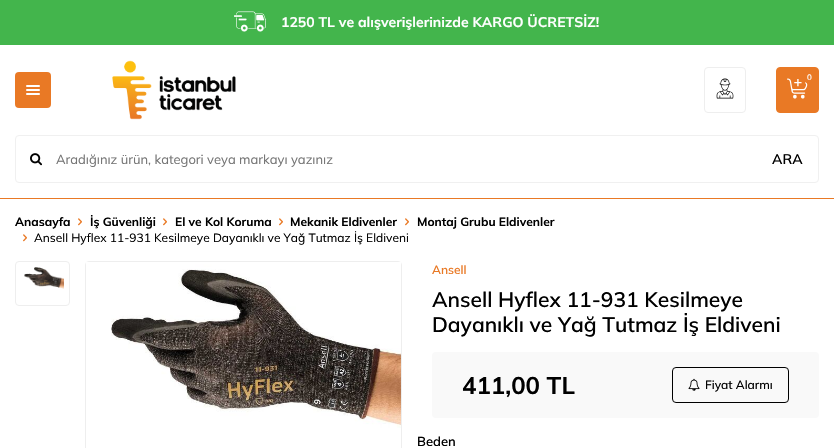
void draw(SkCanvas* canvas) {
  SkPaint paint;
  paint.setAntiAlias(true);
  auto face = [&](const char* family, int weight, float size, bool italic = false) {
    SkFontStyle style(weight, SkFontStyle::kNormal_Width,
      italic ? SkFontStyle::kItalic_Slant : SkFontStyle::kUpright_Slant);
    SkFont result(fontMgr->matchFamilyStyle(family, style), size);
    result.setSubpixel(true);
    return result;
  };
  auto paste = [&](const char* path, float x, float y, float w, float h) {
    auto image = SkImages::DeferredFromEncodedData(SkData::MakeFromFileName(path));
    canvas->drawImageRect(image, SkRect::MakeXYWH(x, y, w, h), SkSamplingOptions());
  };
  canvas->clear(0xffffffff);
  paint.setColor(0xff43b54c);
  canvas->drawRect(SkRect::MakeXYWH(0, 0, 834, 45), paint);
  paste("img/1.png", 234, 11, 32, 21);
  paint.setColor(0xffe97925);
  canvas->drawRect(SkRect::MakeXYWH(0, 198, 834, 1), paint);
  canvas->drawRoundRect(SkRect::MakeXYWH(15, 72, 36, 36), 4, 4, paint);
  paste("img/2.png", 26, 85, 14, 10);
  paste("img/3.png", 112, 60, 124, 60);
  paint.setStroke(true);
  paint.setStrokeWidth(1);
  paint.setColor(0xffeeeeee);
  canvas->drawRoundRect(SkRect::MakeXYWH(704.5f, 67.5f, 41, 45), 3.5f, 3.5f, paint);
  paste("img/4.png", 716, 78, 18, 21);
  paint.setStroke(false);
  paint.setColor(0xffe97925);
  canvas->drawRoundRect(SkRect::MakeXYWH(776.5f, 67.5f, 42, 45), 3.5f, 3.5f, paint);
  paint.setStroke(true);
  canvas->drawRoundRect(SkRect::MakeXYWH(776.5f, 67.5f, 42, 45), 3.5f, 3.5f, paint);
  paste("img/5.png", 787, 78, 21, 21);
  paint.setStroke(false);
  canvas->drawCircle(809, 77, 6, paint);
  paint.setStroke(true);
  paint.setColor(0xfff0f0f0);
  canvas->drawRoundRect(SkRect::MakeXYWH(15.5f, 135.5f, 803, 47), 3.5f, 3.5f, paint);
  paste("img/6.png", 30, 153, 12, 13);
  paste("img/7.png", 78, 218, 4, 8);
  paste("img/7.png", 163, 218, 4, 8);
  paste("img/7.png", 279, 218, 4, 8);
  paste("img/7.png", 405, 218, 4, 8);
  paste("img/7.png", 23, 234, 4, 8);
  paint.setColor(0xffeeeeee);
  canvas->drawRoundRect(SkRect::MakeXYWH(15.5f, 261.5f, 54, 44), 3.5f, 3.5f, paint);
  paste("img/8.png", 24, 267, 40, 22);
  canvas->drawRoundRect(SkRect::MakeXYWH(85.5f, 261.5f, 316, 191), 3.5f, 3.5f, paint);
  paste("img/9.png", 86, 262, 315, 166);
  paint.setStroke(false);
  paint.setColor(0xfff9f9f9);
  canvas->drawRoundRect(SkRect::MakeXYWH(432, 352, 387, 66), 4, 4, paint);
  paint.setStroke(true);
  paint.setColor(0xff000000);
  canvas->drawRoundRect(SkRect::MakeXYWH(672.5f, 367.5f, 116, 35), 3.5f, 3.5f, paint);
  paste("img/10.png", 688, 378, 12, 13);
  auto f0 = face("Mulish", 700, 14);
  paint.setStroke(false);
  paint.setColor(0xffffffff);
  canvas->drawString("1250 TL ve alışverişlerinizde KARGO ÜCRETSİZ!", 281, 27, f0, paint);
  auto f1 = face("Mulish", 500, 8);
  canvas->drawString("0", 807, 80, f1, paint);
  auto f2 = face("Mulish", 400, 13);
  paint.setColor(0xff757575);
  canvas->drawString("Aradığınız ürün, kategori veya markayı yazınız", 56, 164, f2, paint);
  auto f3 = face("Mulish", 600, 14);
  paint.setColor(0xff000000);
  canvas->drawString("ARA", 772, 164, f3, paint);
  auto f4 = face("Mulish", 700, 12);
  {
    const struct { const char* s; float x, y; } items[] = {
      {"Anasayfa", 15, 226},
      {"İş Güvenliği", 90, 226},
      {"El ve Kol Koruma", 175, 226},
      {"Mekanik Eldivenler", 290, 226},
      {"Montaj Grubu Eldivenler", 417, 226},
    };
    for (auto [s, x, y] : items) {
      canvas->drawString(s, x, y, f4, paint);
    }
  }
  auto f5 = face("Mulish", 400, 12);
  canvas->drawString("Ansell Hyflex 11-931 Kesilmeye Dayanıklı ve Yağ Tutmaz İş Eldiveni", 34, 242, f5, paint);
  auto f6 = face("Mulish", 600, 12);
  paint.setColor(0xffe97925);
  canvas->drawString("Ansell", 432, 274, f6, paint);
  auto f7 = face("Mulish", 600, 21);
  paint.setColor(0xff000000);
  canvas->drawString("Ansell Hyflex 11-931 Kesilmeye", 432, 307, f7, paint);
  canvas->drawString("Dayanıklı ve Yağ Tutmaz İş Eldiveni", 432, 332, f7, paint);
  auto f8 = face("Mulish", 700, 24);
  canvas->drawString("411,00 TL", 462, 394, f8, paint);
  auto f9 = face("Mulish", 500, 12);
  canvas->drawString("Fiyat Alarmı", 705, 389, f9, paint);
  auto f10 = face("Mulish", 600, 13);
  canvas->drawString("Beden", 417, 446, f10, paint);
}
